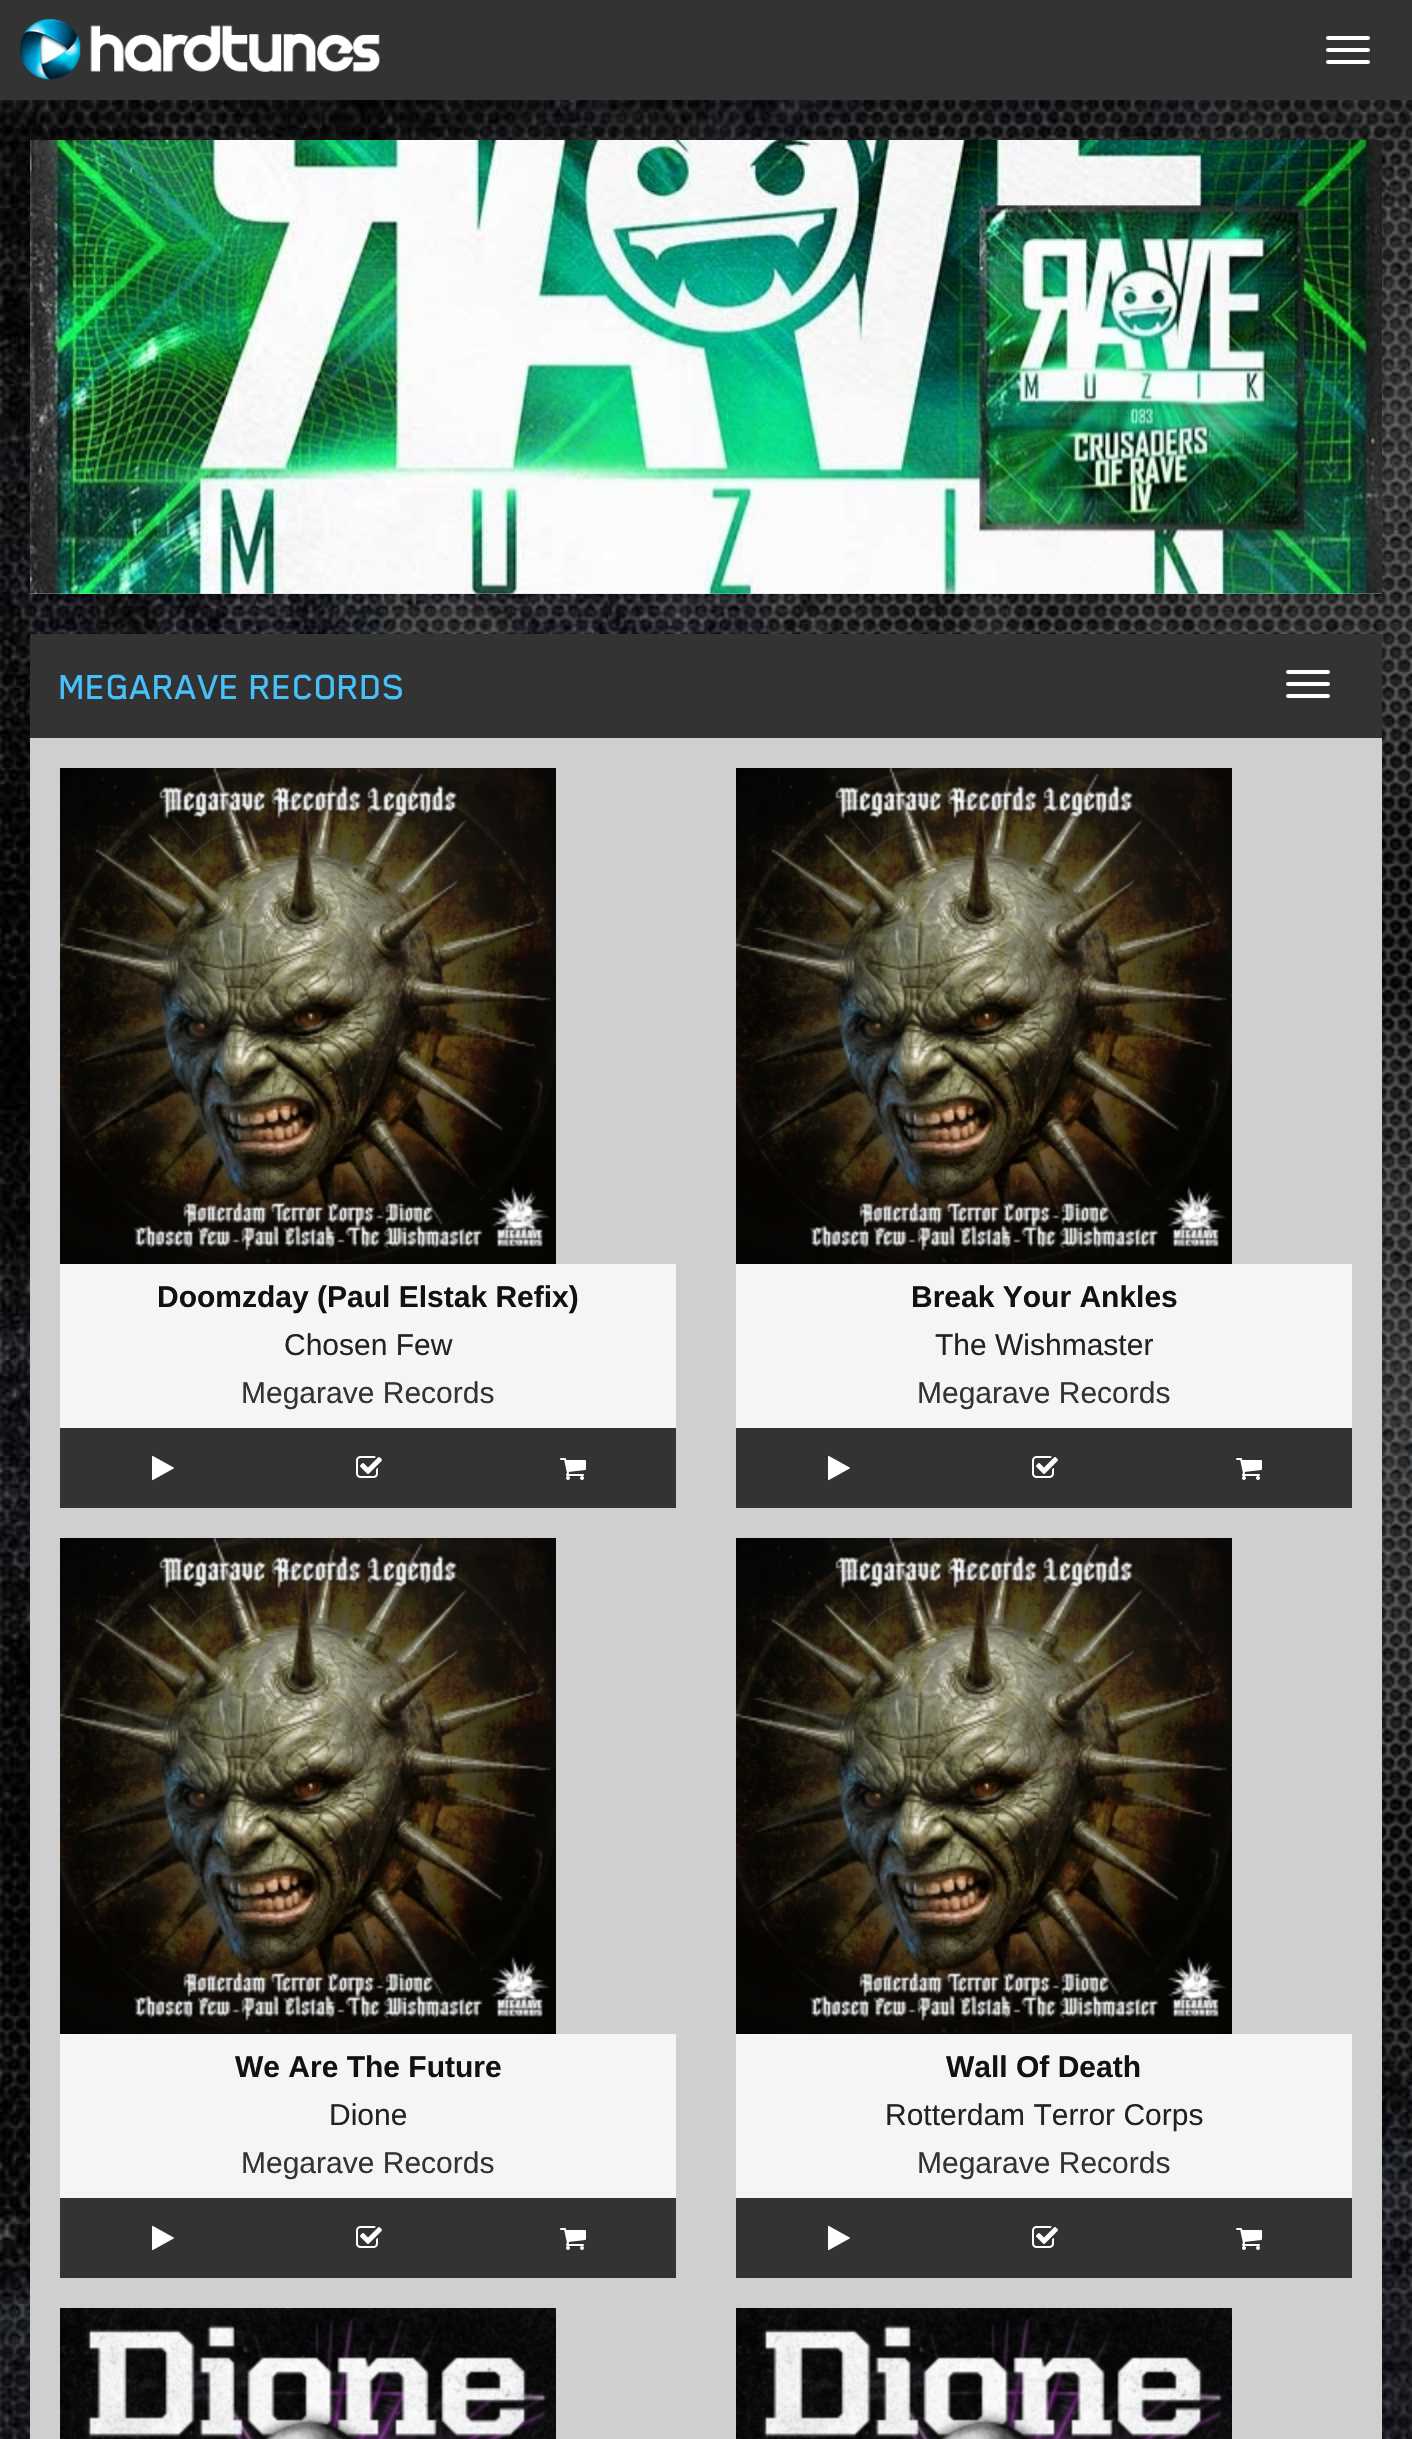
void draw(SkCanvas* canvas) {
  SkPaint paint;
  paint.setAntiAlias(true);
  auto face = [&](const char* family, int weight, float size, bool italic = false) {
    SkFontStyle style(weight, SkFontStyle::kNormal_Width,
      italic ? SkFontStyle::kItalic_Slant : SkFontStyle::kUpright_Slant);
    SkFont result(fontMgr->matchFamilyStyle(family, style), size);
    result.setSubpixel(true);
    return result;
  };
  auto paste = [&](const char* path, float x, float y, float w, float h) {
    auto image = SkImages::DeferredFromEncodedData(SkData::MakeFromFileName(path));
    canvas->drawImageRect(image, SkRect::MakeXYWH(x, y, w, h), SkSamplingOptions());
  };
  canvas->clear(0xffffffff);
  paste("img/1.png", 0, 100, 1412, 2339);
  paint.setColor(0xff333333);
  canvas->drawRect(SkRect::MakeXYWH(0, 0, 1412, 100), paint);
  paste("img/2.png", 19, 18, 361, 62);
  paint.setColor(0xffffffff);
  canvas->drawRoundRect(SkRect::MakeXYWH(1326, 36, 44, 4), 2, 2, paint);
  canvas->drawRoundRect(SkRect::MakeXYWH(1326, 48, 44, 4), 2, 2, paint);
  canvas->drawRoundRect(SkRect::MakeXYWH(1326, 60, 44, 4), 2, 2, paint);
  paint.setColor(0xffcfcfcf);
  canvas->drawRect(SkRect::MakeXYWH(30, 593, 1352, 1), paint);
  paste("img/3.png", 30, 140, 1352, 454);
  paint.setColor(0xff333333);
  canvas->drawRect(SkRect::MakeXYWH(30, 634, 1352, 104), paint);
  paint.setColor(0xffffffff);
  canvas->drawRoundRect(SkRect::MakeXYWH(1286, 670, 44, 4), 2, 2, paint);
  canvas->drawRoundRect(SkRect::MakeXYWH(1286, 682, 44, 4), 2, 2, paint);
  canvas->drawRoundRect(SkRect::MakeXYWH(1286, 694, 44, 4), 2, 2, paint);
  paint.setColor(0xffcfcfcf);
  canvas->drawRect(SkRect::MakeXYWH(30, 738, 1352, 1701), paint);
  paste("img/4.png", 60, 768, 496, 496);
  paint.setColor(0xfff5f5f5);
  canvas->drawRect(SkRect::MakeXYWH(60, 1264, 616, 164), paint);
  paint.setColor(0xff333333);
  canvas->drawRect(SkRect::MakeXYWH(60, 1428, 616, 80), paint);
  paste("img/5.png", 152, 1455, 22, 26);
  paste("img/6.png", 356, 1456, 26, 22);
  paste("img/7.png", 560, 1458, 26, 22);
  paste("img/4.png", 736, 768, 496, 496);
  paint.setColor(0xfff5f5f5);
  canvas->drawRect(SkRect::MakeXYWH(736, 1264, 616, 164), paint);
  paint.setColor(0xff333333);
  canvas->drawRect(SkRect::MakeXYWH(736, 1428, 616, 80), paint);
  paste("img/5.png", 828, 1455, 22, 26);
  paste("img/6.png", 1032, 1456, 26, 22);
  paste("img/7.png", 1236, 1458, 26, 22);
  paste("img/4.png", 60, 1538, 496, 496);
  paint.setColor(0xfff5f5f5);
  canvas->drawRect(SkRect::MakeXYWH(60, 2034, 616, 164), paint);
  paint.setColor(0xff333333);
  canvas->drawRect(SkRect::MakeXYWH(60, 2198, 616, 80), paint);
  paste("img/5.png", 152, 2225, 22, 26);
  paste("img/6.png", 356, 2226, 26, 22);
  paste("img/7.png", 560, 2228, 26, 22);
  paste("img/4.png", 736, 1538, 496, 496);
  paint.setColor(0xfff5f5f5);
  canvas->drawRect(SkRect::MakeXYWH(736, 2034, 616, 164), paint);
  paint.setColor(0xff333333);
  canvas->drawRect(SkRect::MakeXYWH(736, 2198, 616, 80), paint);
  paste("img/5.png", 828, 2225, 22, 26);
  paste("img/6.png", 1032, 2226, 26, 22);
  paste("img/7.png", 1236, 2228, 26, 22);
  paste("img/8.png", 60, 2308, 496, 131);
  paste("img/8.png", 736, 2308, 496, 131);
  auto f0 = face("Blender", 500, 40);
  paint.setColor(0xff48c0f9);
  canvas->drawString("MEGARAVE RECORDS", 60, 699, f0, paint);
  auto f1 = face("Liberation Sans", 700, 30);
  paint.setColor(0xff111111);
  canvas->drawString("Doomzday (Paul Elstak Refix)", 157, 1307, f1, paint);
  auto f2 = face("Liberation Sans", 400, 30);
  paint.setColor(0xff222222);
  canvas->drawString("Chosen Few", 284, 1355, f2, paint);
  paint.setColor(0xff333333);
  canvas->drawString("Megarave Records", 241, 1403, f2, paint);
  paint.setColor(0xff111111);
  canvas->drawString("Break Your Ankles", 911, 1307, f1, paint);
  paint.setColor(0xff222222);
  canvas->drawString("The Wishmaster", 935, 1355, f2, paint);
  paint.setColor(0xff333333);
  canvas->drawString("Megarave Records", 917, 1403, f2, paint);
  paint.setColor(0xff111111);
  canvas->drawString("We Are The Future", 235, 2077, f1, paint);
  paint.setColor(0xff222222);
  canvas->drawString("Dione", 329, 2125, f2, paint);
  paint.setColor(0xff333333);
  canvas->drawString("Megarave Records", 241, 2173, f2, paint);
  paint.setColor(0xff111111);
  canvas->drawString("Wall Of Death", 946, 2077, f1, paint);
  paint.setColor(0xff222222);
  canvas->drawString("Rotterdam Terror Corps", 885, 2125, f2, paint);
  paint.setColor(0xff333333);
  canvas->drawString("Megarave Records", 917, 2173, f2, paint);
}
